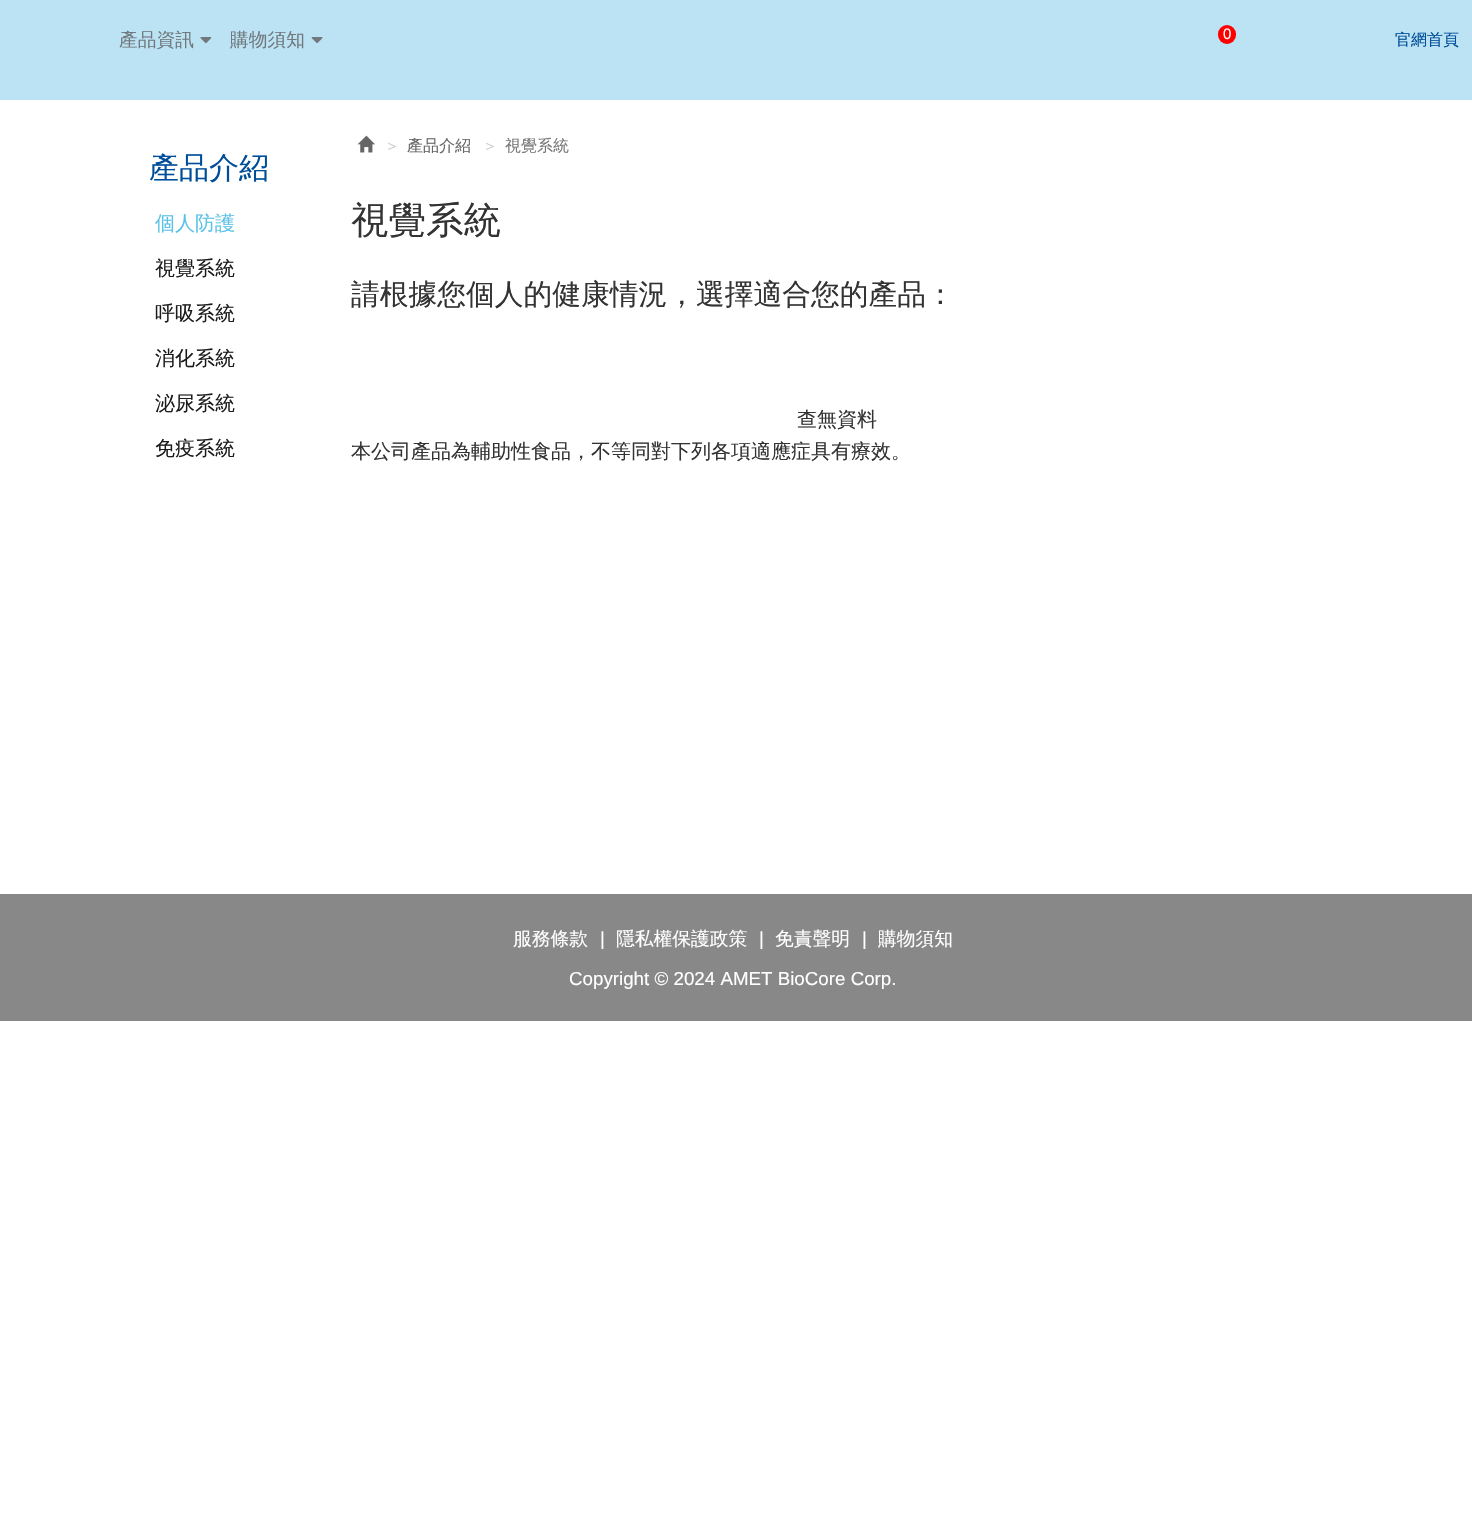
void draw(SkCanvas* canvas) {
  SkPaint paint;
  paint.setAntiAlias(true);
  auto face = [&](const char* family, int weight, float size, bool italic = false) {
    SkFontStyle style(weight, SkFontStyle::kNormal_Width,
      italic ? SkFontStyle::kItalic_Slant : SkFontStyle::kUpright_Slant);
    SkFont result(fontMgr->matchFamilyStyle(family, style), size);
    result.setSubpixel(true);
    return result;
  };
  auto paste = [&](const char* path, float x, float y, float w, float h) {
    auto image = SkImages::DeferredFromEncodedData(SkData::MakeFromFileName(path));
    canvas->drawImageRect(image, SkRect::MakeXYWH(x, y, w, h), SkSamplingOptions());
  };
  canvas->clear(0xffffffff);
  paint.setColor(0xffbce3f4);
  canvas->drawRect(SkRect::MakeXYWH(0, 0, 1472, 100), paint);
  paint.setColor(0xffff0000);
  canvas->drawRoundRect(SkRect::MakeXYWH(1218, 25, 18, 19), 9, 9, paint);
  paste("img/1.png", 200, 37, 12, 7);
  paste("img/2.png", 311, 37, 12, 7);
  paste("img/3.png", 357, 135, 18, 18);
  paint.setColor(0xff888888);
  canvas->drawRect(SkRect::MakeXYWH(0, 894, 1472, 127), paint);
  auto f0 = face("Liberation Sans", 400, 15);
  paint.setColor(0xffffffff);
  canvas->drawString("0", 1223, 39, f0, paint);
  auto f1 = face("WenQuanYi Zen Hei", 500, 18.75f);
  paint.setColor(0xff71797e);
  canvas->drawString("產品資訊", 119, 46, f1, paint);
  canvas->drawString("購物須知", 230, 46, f1, paint);
  auto f2 = face("WenQuanYi Zen Hei", 500, 16);
  paint.setColor(0xff004e99);
  canvas->drawString("官網首頁", 1395, 45, f2, paint);
  auto f3 = face("WenQuanYi Zen Hei", 500, 30);
  canvas->drawString("產品介紹", 149, 178, f3, paint);
  auto f4 = face("WenQuanYi Zen Hei", 500, 20);
  paint.setColor(0xff5bc2e7);
  canvas->drawString("個人防護", 155, 230, f4, paint);
  paint.setColor(0xff1b1b1b);
  {
    const struct { const char* s; float x, y; } items[] = {
      {"視覺系統", 155, 275},
      {"呼吸系統", 155, 320},
      {"消化系統", 155, 365},
      {"泌尿系統", 155, 410},
      {"免疫系統", 155, 455},
    };
    for (auto [s, x, y] : items) {
      canvas->drawString(s, x, y, f4, paint);
    }
  }
  paint.setColor(0xffcccccc);
  canvas->drawString("＞", 384, 151, f2, paint);
  paint.setColor(0xff666666);
  canvas->drawString("產品介紹", 407, 151, f2, paint);
  paint.setColor(0xffcccccc);
  canvas->drawString("＞", 482, 151, f2, paint);
  paint.setColor(0xff777777);
  canvas->drawString("視覺系統", 505, 151, f2, paint);
  auto f5 = face("WenQuanYi Zen Hei", 500, 37.5f);
  paint.setColor(0xff333333);
  canvas->drawString("視覺系統", 351, 233, f5, paint);
  auto f6 = face("WenQuanYi Zen Hei", 500, 28.75f);
  canvas->drawString("請根據您個人的健康情況，選擇適合您的產品：", 351, 304, f6, paint);
  canvas->drawString("查無資料", 797, 426, f4, paint);
  canvas->drawString("本公司產品為輔助性食品，不等同對下列各項適應症具有療效。", 351, 458, f4, paint);
  paint.setColor(0xffffffff);
  canvas->drawString("服務條款", 513, 945, f1, paint);
  auto f7 = face("Liberation Sans", 400, 18.75f);
  canvas->drawString("|", 600, 945, f7, paint);
  canvas->drawString("隱私權保護政策", 616, 945, f1, paint);
  canvas->drawString("|", 759, 945, f7, paint);
  canvas->drawString("免責聲明", 775, 945, f1, paint);
  canvas->drawString("|", 862, 945, f7, paint);
  canvas->drawString("購物須知", 878, 945, f1, paint);
  canvas->drawString("Copyright © 2024 AMET BioCore Corp.", 569, 985, f7, paint);
}
